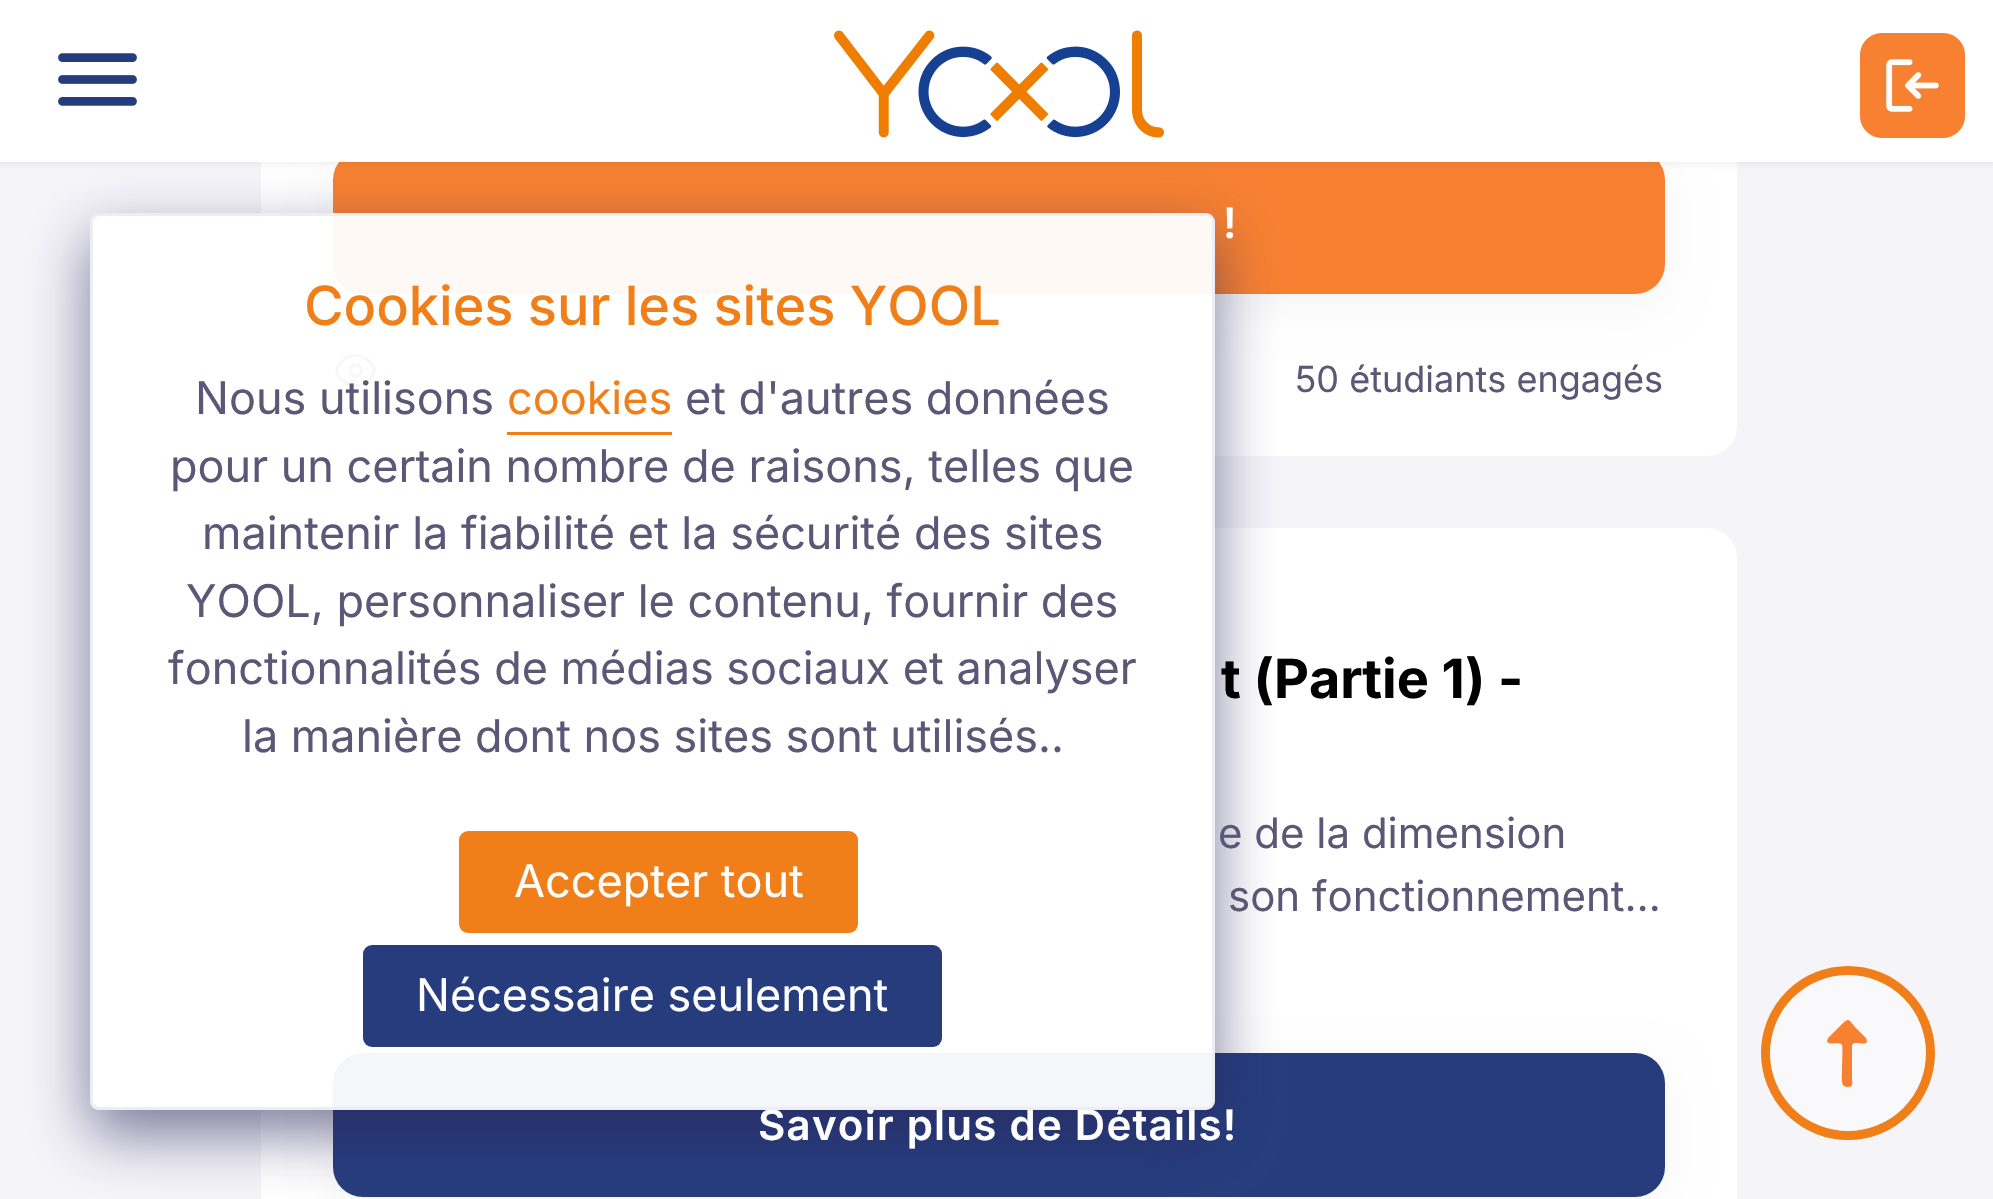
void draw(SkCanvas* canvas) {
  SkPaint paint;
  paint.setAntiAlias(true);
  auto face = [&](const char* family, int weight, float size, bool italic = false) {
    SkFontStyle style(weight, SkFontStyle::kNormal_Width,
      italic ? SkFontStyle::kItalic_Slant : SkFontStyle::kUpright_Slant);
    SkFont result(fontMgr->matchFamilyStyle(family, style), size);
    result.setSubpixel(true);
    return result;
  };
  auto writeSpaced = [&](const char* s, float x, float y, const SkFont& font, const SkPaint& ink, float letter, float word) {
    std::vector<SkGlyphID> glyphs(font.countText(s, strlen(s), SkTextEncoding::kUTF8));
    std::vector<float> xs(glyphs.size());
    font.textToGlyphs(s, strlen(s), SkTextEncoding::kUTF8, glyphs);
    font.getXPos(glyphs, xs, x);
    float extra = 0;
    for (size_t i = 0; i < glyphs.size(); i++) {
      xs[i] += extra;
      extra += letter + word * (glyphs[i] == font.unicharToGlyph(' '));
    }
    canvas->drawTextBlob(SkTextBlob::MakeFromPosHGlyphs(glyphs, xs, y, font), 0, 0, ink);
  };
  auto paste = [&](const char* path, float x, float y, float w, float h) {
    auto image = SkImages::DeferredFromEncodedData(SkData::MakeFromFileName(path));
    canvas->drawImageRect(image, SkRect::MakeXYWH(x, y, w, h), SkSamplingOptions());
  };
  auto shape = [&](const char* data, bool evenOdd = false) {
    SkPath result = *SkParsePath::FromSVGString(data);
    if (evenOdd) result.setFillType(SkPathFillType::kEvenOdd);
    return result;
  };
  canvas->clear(0xfff5f4f9);
  paint.setColor(0xffffffff);
  canvas->drawRoundRect(SkRect::MakeXYWH(261, -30, 1476, 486), 30, 30, paint);
  paint.setColor(0x0a000000);
  paint.setMaskFilter(SkMaskFilter::MakeBlur(kNormal_SkBlurStyle, 21));
  canvas->drawRoundRect(SkRect::MakeXYWH(333, 162, 1332, 144), 30, 30, paint);
  paint.setMaskFilter(nullptr);
  paint.setColor(0xfff78031);
  canvas->drawRoundRect(SkRect::MakeXYWH(333, 150, 1332, 144), 30, 30, paint);
  paint.setColor(0x0d000000);
  paint.setMaskFilter(SkMaskFilter::MakeBlur(kNormal_SkBlurStyle, 3));
  canvas->drawRect(SkRect::MakeXYWH(0, 3, 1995, 162), paint);
  paint.setMaskFilter(nullptr);
  paste("img/4.png", 335, 354, 41, 33);
  paint.setColor(0xffffffff);
  canvas->drawRoundRect(SkRect::MakeXYWH(261, 528, 1476, 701), 30, 30, paint);
  paint.setColor(0x0a000000);
  paint.setMaskFilter(SkMaskFilter::MakeBlur(kNormal_SkBlurStyle, 21));
  canvas->drawRoundRect(SkRect::MakeXYWH(333, 1065, 1332, 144), 30, 30, paint);
  paint.setMaskFilter(nullptr);
  paint.setColor(0xff263c7c);
  canvas->drawRoundRect(SkRect::MakeXYWH(333, 1053, 1332, 144), 30, 30, paint);
  canvas->save();
  canvas->clipPath(shape("M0 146H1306V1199H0ZM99 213H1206C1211 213 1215 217 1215 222V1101C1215 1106 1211 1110 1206 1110H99C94 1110 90 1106 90 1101V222C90 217 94 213 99 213Z", true), true);
  paint.setColor(0x99282559);
  paint.setMaskFilter(SkMaskFilter::MakeBlur(kNormal_SkBlurStyle, 30));
  canvas->drawRoundRect(SkRect::MakeXYWH(90, 237, 1125, 897), 9, 9, paint);
  paint.setMaskFilter(nullptr);
  canvas->restore();
  paint.setColor(0xffffffff);
  canvas->drawRect(SkRect::MakeXYWH(0, 0, 1993, 162), paint);
  paste("img/1.png", 58, 53, 79, 53);
  paste("img/2.png", 834, 30, 330, 108);
  paste("img/3.png", 1860, 33, 105, 105);
  paint.setColor(0xfff9f8fb);
  canvas->drawCircle(1848, 1053, 82.5f, paint);
  paint.setStroke(true);
  paint.setStrokeWidth(9);
  paint.setColor(0xfff07f19);
  canvas->drawCircle(1848, 1053, 82.5f, paint);
  paint.setStroke(false);
  paint.setColor(0xfff78031);
  canvas->drawPath(shape("M1866 1038L1867 1041C1867 1047 1854 1040 1852 1045V1078C1852 1084 1854 1087 1847 1087L1844 1086C1841 1085 1842 1074 1842 1071C1842 1067 1843 1046 1842 1045C1839 1041 1828 1046 1827 1041L1828 1038L1842 1024C1849 1017 1849 1020 1855 1027Z"), paint);
  auto f0 = face("Inter", 600, 42);
  paint.setColor(0xffffffff);
  writeSpaced("!", 1223, 238, f0, paint, 1.25f, 0);
  auto f1 = face("Inter", 400, 36);
  paint.setColor(0xff5c5776);
  canvas->drawString("50 étudiants engagés", 1295, 392, f1, paint);
  auto f2 = face("Inter", 700, 54);
  paint.setColor(0xff000000);
  canvas->drawString("t (Partie 1) -", 1221, 698, f2, paint);
  auto f3 = face("Inter", 400, 42);
  paint.setColor(0xff5c5776);
  canvas->drawString("e de la dimension", 1218, 848, f3, paint);
  canvas->drawString("son fonctionnement…", 1228, 911, f3, paint);
  paint.setColor(0xffffffff);
  writeSpaced("Savoir plus de Détails!", 758, 1140, f0, paint, 1.25f, 0);
  paint.setColor(0xf2ffffff);
  canvas->drawRoundRect(SkRect::MakeXYWH(91.5f, 214.5f, 1122, 894), 7.5f, 7.5f, paint);
  paint.setStroke(true);
  paint.setStrokeWidth(3);
  paint.setColor(0xffededf5);
  canvas->drawRoundRect(SkRect::MakeXYWH(91.5f, 214.5f, 1122, 894), 7.5f, 7.5f, paint);
  paint.setStroke(false);
  paint.setColor(0xff263c7c);
  canvas->drawRoundRect(SkRect::MakeXYWH(363, 945, 579, 102), 9, 9, paint);
  auto f4 = face("Inter", 400, 45);
  paint.setColor(0xffffffff);
  canvas->drawString("Nécessaire seulement", 416, 1011, f4, paint);
  paint.setColor(0xfff07f19);
  canvas->drawRoundRect(SkRect::MakeXYWH(459, 831, 399, 102), 9, 9, paint);
  paint.setColor(0xffffffff);
  canvas->drawString("Accepter tout", 514, 897, f4, paint);
  paint.setColor(0xff5c5776);
  {
    const struct { const char* s; float x, y; } items[] = {
      {"la manière dont nos sites sont utilisés..", 242, 752},
      {"fonctionnalités de médias sociaux et analyser", 168, 684},
      {"YOOL, personnaliser le contenu, fournir des", 186, 617},
      {"maintenir la fiabilité et la sécurité des sites", 202, 549},
      {"pour un certain nombre de raisons, telles que", 170, 482},
      {"et d'autres données", 685, 414},
    };
    for (auto [s, x, y] : items) {
      canvas->drawString(s, x, y, f4, paint);
    }
  }
  paint.setColor(0xfff07f19);
  canvas->drawString("cookies", 507, 414, f4, paint);
  canvas->drawRect(SkRect::MakeXYWH(507, 432, 165, 3), paint);
  paint.setColor(0xff5c5776);
  canvas->drawString("Nous utilisons", 195, 414, f4, paint);
  auto f5 = face("Inter", 500, 54);
  paint.setColor(0xfff07f19);
  canvas->drawString("Cookies sur les sites YOOL", 304, 325, f5, paint);
}
